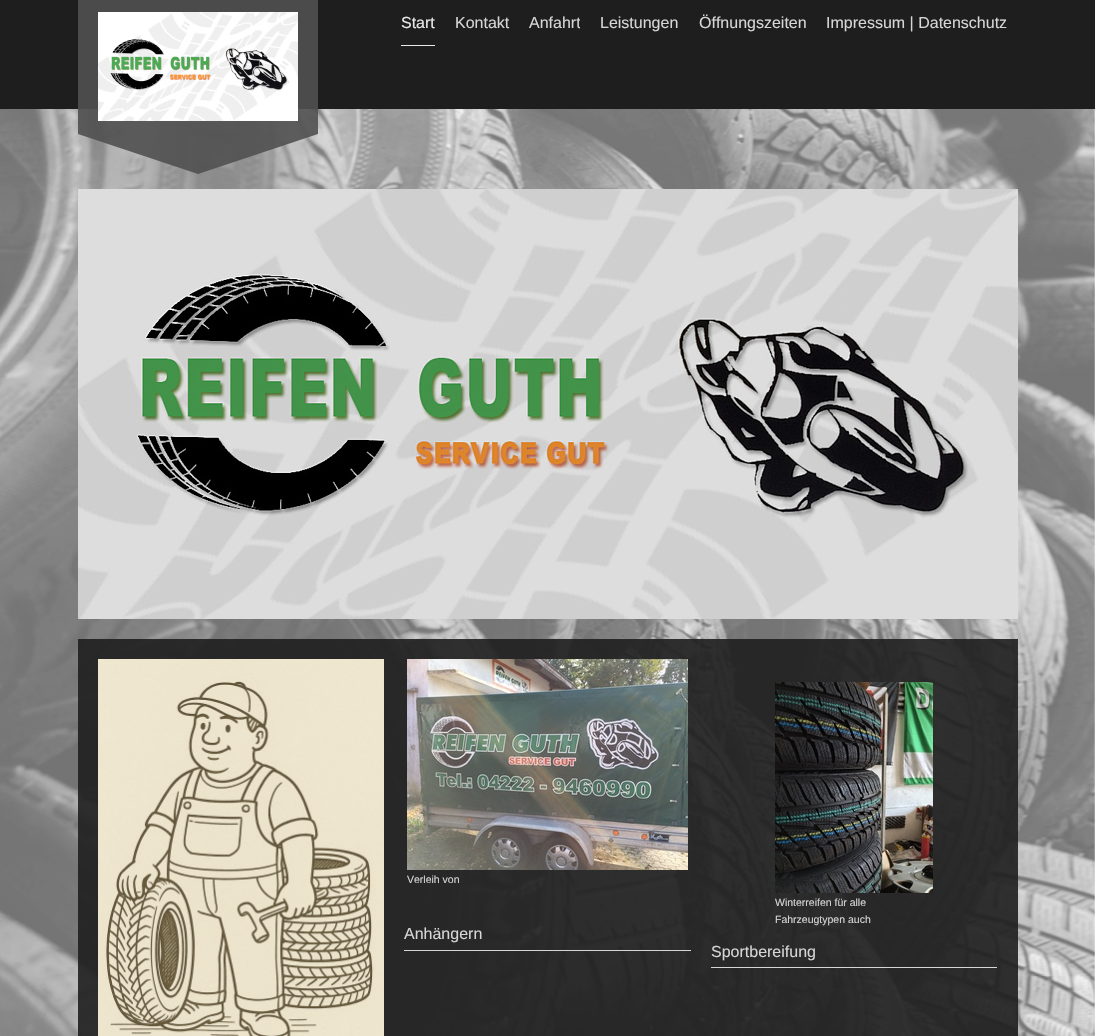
void draw(SkCanvas* canvas) {
  SkPaint paint;
  paint.setAntiAlias(true);
  auto face = [&](const char* family, int weight, float size, bool italic = false) {
    SkFontStyle style(weight, SkFontStyle::kNormal_Width,
      italic ? SkFontStyle::kItalic_Slant : SkFontStyle::kUpright_Slant);
    SkFont result(fontMgr->matchFamilyStyle(family, style), size);
    result.setSubpixel(true);
    return result;
  };
  auto paste = [&](const char* path, float x, float y, float w, float h) {
    auto image = SkImages::DeferredFromEncodedData(SkData::MakeFromFileName(path));
    canvas->drawImageRect(image, SkRect::MakeXYWH(x, y, w, h), SkSamplingOptions());
  };
  auto shape = [&](const char* data, bool evenOdd = false) {
    SkPath result = *SkParsePath::FromSVGString(data);
    if (evenOdd) result.setFillType(SkPathFillType::kEvenOdd);
    return result;
  };
  canvas->clear(0xffffffff);
  paste("img/1.png", 0, 109, 1095, 927);
  paint.setColor(0xff1e1e1e);
  canvas->drawRect(SkRect::MakeXYWH(0, 0, 1095, 109), paint);
  paint.setColor(0xe6505050);
  canvas->drawRect(SkRect::MakeXYWH(78, 0, 240, 134), paint);
  paste("img/2.png", 98, 12, 200, 109);
  canvas->drawPath(shape("M78 134H318L198 174Z"), paint);
  paint.setColor(0xffe9e9e9);
  canvas->drawRect(SkRect::MakeXYWH(401, 45, 34, 1), paint);
  paste("img/3.png", 78, 189, 940, 430);
  paint.setColor(0xe61e1e1e);
  canvas->drawRect(SkRect::MakeXYWH(78, 639, 940, 397), paint);
  paste("img/4.png", 98, 659, 286, 377);
  paste("img/5.png", 407, 659, 281, 211);
  paint.setColor(0xffd6d6d6);
  canvas->drawRect(SkRect::MakeXYWH(404, 950, 287, 1), paint);
  paste("img/6.png", 775, 682, 158, 211);
  canvas->drawRect(SkRect::MakeXYWH(711, 967, 286, 1), paint);
  auto f0 = face("Liberation Sans", 400, 16);
  paint.setColor(0xffe9e9e9);
  canvas->drawString("Start", 401, 28, f0, paint);
  paint.setColor(0xffd6d6d6);
  canvas->drawString("Kontakt", 455, 28, f0, paint);
  canvas->save();
  canvas->clipRect(SkRect::MakeXYWH(529, 0, 51, 46));
  canvas->drawString("Anfahrt", 529, 28, f0, paint);
  canvas->restore();
  {
    const struct { const char* s; float x, y; } items[] = {
      {"Leistungen", 600, 28},
      {"Öffnungszeiten", 699, 28},
      {"Impressum | Datenschutz", 826, 28},
    };
    for (auto [s, x, y] : items) {
      canvas->drawString(s, x, y, f0, paint);
    }
  }
  auto f1 = face("Liberation Sans", 400, 10.5f);
  canvas->drawString("Verleih von", 407, 883, f1, paint);
  canvas->drawString("Anhängern", 404, 939, f0, paint);
  canvas->drawString("Winterreifen für alle", 775, 906, f1, paint);
  canvas->drawString("Fahrzeugtypen auch", 775, 923, f1, paint);
  canvas->drawString("Sportbereifung", 711, 957, f0, paint);
}
